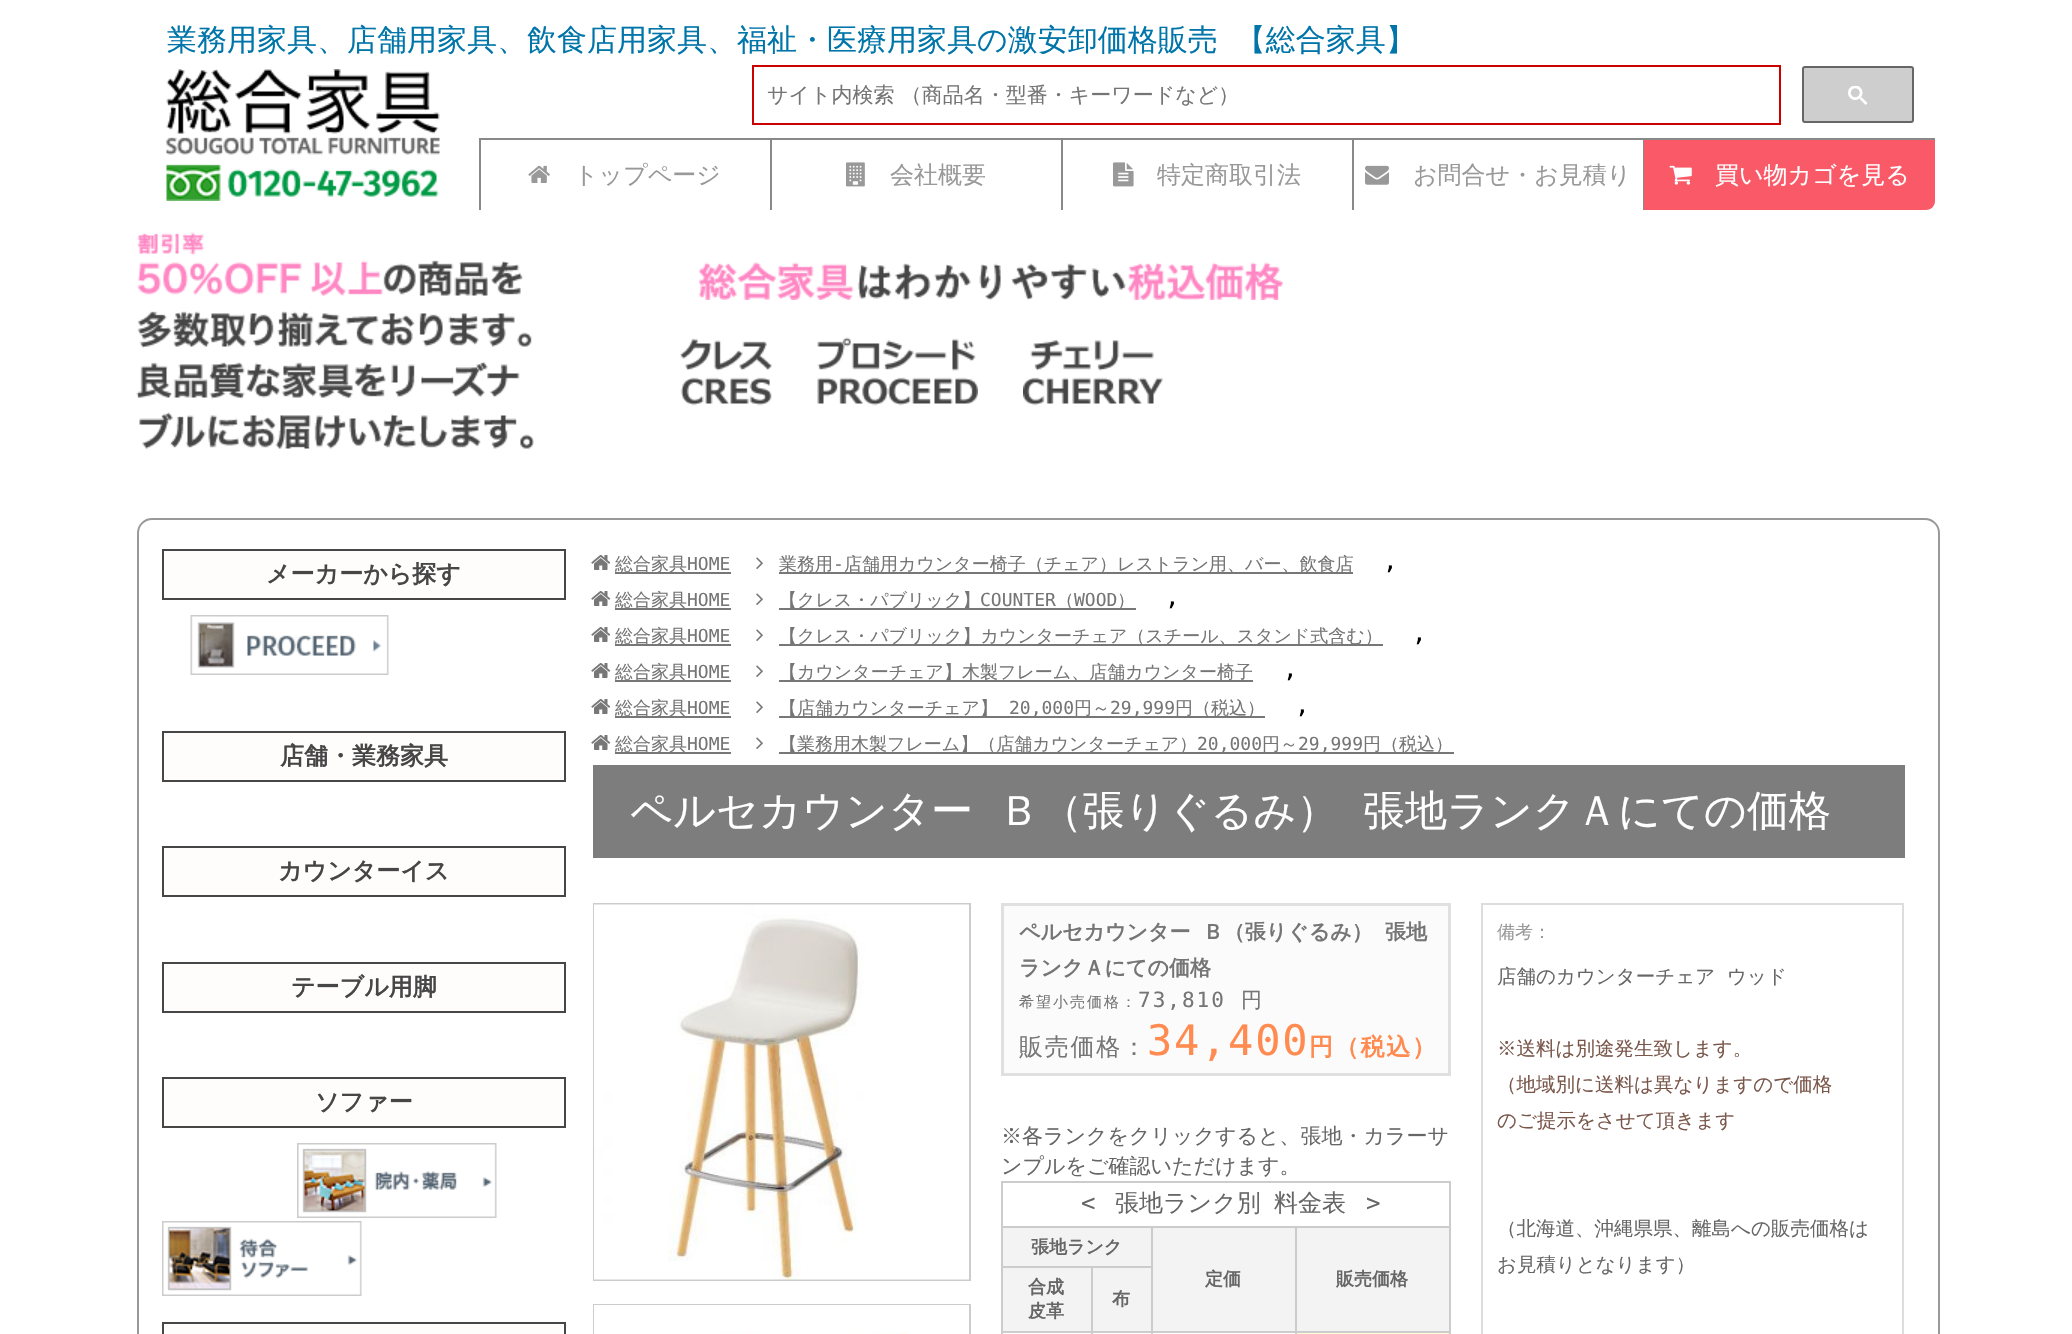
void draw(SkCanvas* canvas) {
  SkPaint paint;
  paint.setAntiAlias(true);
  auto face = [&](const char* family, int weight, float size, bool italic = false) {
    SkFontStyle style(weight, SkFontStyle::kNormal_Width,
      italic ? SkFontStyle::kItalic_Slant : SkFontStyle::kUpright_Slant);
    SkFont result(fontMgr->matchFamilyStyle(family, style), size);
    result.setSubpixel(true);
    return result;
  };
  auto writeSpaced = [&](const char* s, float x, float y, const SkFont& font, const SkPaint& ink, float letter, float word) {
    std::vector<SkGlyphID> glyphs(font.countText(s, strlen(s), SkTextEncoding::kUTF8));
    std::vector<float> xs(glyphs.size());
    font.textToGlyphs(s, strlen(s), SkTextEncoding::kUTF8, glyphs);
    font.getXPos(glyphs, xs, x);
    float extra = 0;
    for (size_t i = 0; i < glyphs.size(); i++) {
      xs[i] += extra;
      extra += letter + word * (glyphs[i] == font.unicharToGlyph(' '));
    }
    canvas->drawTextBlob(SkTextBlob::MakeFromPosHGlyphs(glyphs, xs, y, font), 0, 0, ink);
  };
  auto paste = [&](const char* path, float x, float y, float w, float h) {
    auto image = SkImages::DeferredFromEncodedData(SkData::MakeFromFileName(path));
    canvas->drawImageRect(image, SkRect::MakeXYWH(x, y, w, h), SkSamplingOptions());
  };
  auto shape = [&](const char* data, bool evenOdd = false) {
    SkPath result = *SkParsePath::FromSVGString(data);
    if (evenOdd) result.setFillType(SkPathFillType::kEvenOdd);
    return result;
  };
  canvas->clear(0xffffffff);
  paste("img/1.png", 166, 69, 274, 132);
  paint.setStroke(true);
  paint.setStrokeWidth(2);
  paint.setColor(0xffcc0000);
  canvas->drawRect(SkRect::MakeXYWH(753, 66, 1027, 58), paint);
  paint.setStroke(false);
  paint.setColor(0xffcecece);
  canvas->drawRoundRect(SkRect::MakeXYWH(1803, 67, 110, 55), 2, 2, paint);
  paint.setStroke(true);
  paint.setColor(0xff666666);
  canvas->drawRoundRect(SkRect::MakeXYWH(1803, 67, 110, 55), 2, 2, paint);
  paste("img/2.png", 1848, 86, 20, 19);
  paint.setStroke(false);
  {
    const struct { float x, y, w, h; SkColor color; } items[] = {
      {479, 138, 1456, 2, 0xff898989},
      {479, 138, 2, 72, 0xff898989},
      {770, 140, 2, 70, 0xff898989},
    };
    for (auto [x, y, w, h, color] : items) {
      paint.setColor(color);
      canvas->drawRect(SkRect::MakeXYWH(x, y, w, h), paint);
    }
  }
  paste("img/3.png", 528, 165, 22, 18);
  canvas->drawRect(SkRect::MakeXYWH(1061, 140, 2, 70), paint);
  paste("img/4.png", 846, 162, 19, 25);
  canvas->drawRect(SkRect::MakeXYWH(1352, 140, 2, 70), paint);
  paste("img/5.png", 1113, 162, 21, 25);
  canvas->drawRect(SkRect::MakeXYWH(1643, 140, 1, 70), paint);
  paste("img/6.png", 1365, 165, 24, 20);
  paint.setColor(0xfffa5968);
  canvas->drawPath(shape("M1644 140H1935V201C1935 206 1931 210 1926 210H1644Z"), paint);
  paste("img/7.png", 1669, 165, 23, 20);
  paste("img/8.png", 136, 232, 398, 217);
  paste("img/9.png", 699, 262, 584, 38);
  paste("img/10.png", 680, 338, 93, 68);
  paste("img/11.png", 817, 337, 161, 69);
  paste("img/12.png", 1023, 340, 140, 66);
  paint.setStroke(true);
  paint.setColor(0xff999999);
  canvas->drawRoundRect(SkRect::MakeXYWH(138, 519, 1801, 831), 14, 14, paint);
  paint.setStroke(false);
  paint.setColor(0xfffffcfc);
  canvas->drawRect(SkRect::MakeXYWH(163, 550, 402, 49), paint);
  paint.setStroke(true);
  paint.setColor(0xff464646);
  canvas->drawRect(SkRect::MakeXYWH(163, 550, 402, 49), paint);
  paste("img/13.png", 190, 615, 199, 60);
  paint.setStroke(false);
  paint.setColor(0xfffffcfc);
  canvas->drawRect(SkRect::MakeXYWH(163, 732, 402, 49), paint);
  paint.setStroke(true);
  paint.setColor(0xff464646);
  canvas->drawRect(SkRect::MakeXYWH(163, 732, 402, 49), paint);
  paint.setStroke(false);
  paint.setColor(0xfffffcfc);
  canvas->drawRect(SkRect::MakeXYWH(163, 847, 402, 49), paint);
  paint.setStroke(true);
  paint.setColor(0xff464646);
  canvas->drawRect(SkRect::MakeXYWH(163, 847, 402, 49), paint);
  paint.setStroke(false);
  paint.setColor(0xfffffcfc);
  canvas->drawRect(SkRect::MakeXYWH(163, 963, 402, 49), paint);
  paint.setStroke(true);
  paint.setColor(0xff464646);
  canvas->drawRect(SkRect::MakeXYWH(163, 963, 402, 49), paint);
  paint.setStroke(false);
  paint.setColor(0xfffffcfc);
  canvas->drawRect(SkRect::MakeXYWH(163, 1078, 402, 49), paint);
  paint.setStroke(true);
  paint.setColor(0xff464646);
  canvas->drawRect(SkRect::MakeXYWH(163, 1078, 402, 49), paint);
  paste("img/14.png", 297, 1143, 200, 75);
  paste("img/15.png", 162, 1221, 200, 75);
  paint.setStroke(false);
  paint.setColor(0xfffffcfc);
  canvas->drawRect(SkRect::MakeXYWH(163, 1323, 402, 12), paint);
  paint.setStroke(true);
  paint.setColor(0xff464646);
  canvas->drawRect(SkRect::MakeXYWH(163, 1323, 402, 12), paint);
  paste("img/16.png", 591, 555, 20, 15);
  paint.setStroke(false);
  paint.setColor(0xff777777);
  canvas->drawRect(SkRect::MakeXYWH(615, 572, 116, 2), paint);
  paste("img/17.png", 756, 557, 7, 12);
  canvas->drawRect(SkRect::MakeXYWH(779, 572, 574, 2), paint);
  paste("img/16.png", 591, 591, 20, 15);
  canvas->drawRect(SkRect::MakeXYWH(615, 608, 116, 2), paint);
  paste("img/17.png", 756, 593, 7, 12);
  canvas->drawRect(SkRect::MakeXYWH(779, 608, 357, 2), paint);
  paste("img/16.png", 591, 627, 20, 15);
  canvas->drawRect(SkRect::MakeXYWH(615, 644, 116, 2), paint);
  paste("img/17.png", 756, 629, 7, 12);
  canvas->drawRect(SkRect::MakeXYWH(779, 644, 604, 2), paint);
  paste("img/16.png", 591, 663, 20, 15);
  canvas->drawRect(SkRect::MakeXYWH(615, 680, 116, 2), paint);
  paste("img/17.png", 756, 665, 7, 12);
  canvas->drawRect(SkRect::MakeXYWH(779, 680, 474, 2), paint);
  paste("img/16.png", 591, 699, 20, 15);
  canvas->drawRect(SkRect::MakeXYWH(615, 716, 116, 2), paint);
  paste("img/17.png", 756, 701, 7, 12);
  canvas->drawRect(SkRect::MakeXYWH(779, 716, 486, 2), paint);
  paste("img/16.png", 591, 735, 20, 15);
  canvas->drawRect(SkRect::MakeXYWH(615, 752, 116, 2), paint);
  paste("img/17.png", 756, 737, 7, 12);
  canvas->drawRect(SkRect::MakeXYWH(779, 752, 675, 2), paint);
  paint.setColor(0xff7d7d7d);
  canvas->drawRect(SkRect::MakeXYWH(593, 765, 1312, 93), paint);
  paint.setStroke(true);
  paint.setColor(0xffcccccc);
  canvas->drawRect(SkRect::MakeXYWH(594, 904, 376, 376), paint);
  paste("img/18.png", 594, 904, 375, 376);
  canvas->drawRect(SkRect::MakeXYWH(594, 1305, 376, 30), paint);
  paste("img/19.png", 594, 1305, 375, 29);
  paint.setStroke(false);
  paint.setColor(0xfffbfbfb);
  canvas->drawRect(SkRect::MakeXYWH(1002.5f, 904.5f, 447, 170), paint);
  paint.setStroke(true);
  paint.setStrokeWidth(3);
  paint.setColor(0xffe0e0e0);
  canvas->drawRect(SkRect::MakeXYWH(1002.5f, 904.5f, 447, 170), paint);
  paint.setStroke(false);
  {
    const struct { float x, y, w, h; SkColor color; } items[] = {
      {1001, 1181, 450, 2, 0xffcccccc},
      {1295, 1333, 156, 1, 0xfffffcda},
      {1449, 1181, 2, 153, 0xffcccccc},
      {1001, 1181, 2, 153, 0xffcccccc},
      {1003, 1228, 148, 38, 0xfff3f3f3},
      {1295, 1226, 156, 2, 0xffcccccc},
      {1295, 1331, 156, 2, 0xffcccccc},
      {1295, 1331, 2, 3, 0xffcccccc},
      {1151, 1331, 145, 2, 0xffcccccc},
      {1295, 1226, 2, 106, 0xffcccccc},
      {1151, 1226, 145, 2, 0xffcccccc},
      {1091, 1266, 61, 2, 0xffcccccc},
      {1151, 1331, 2, 3, 0xffcccccc},
      {1091, 1331, 61, 2, 0xffcccccc},
      {1151, 1226, 2, 106, 0xffcccccc},
      {1001, 1226, 151, 2, 0xffcccccc},
      {1153, 1228, 142, 103, 0xfff3f3f3},
      {1297, 1228, 152, 103, 0xfff3f3f3},
      {1003, 1268, 88, 63, 0xfff3f3f3},
      {1091, 1331, 2, 3, 0xffcccccc},
      {1001, 1331, 91, 2, 0xffcccccc},
      {1091, 1266, 2, 66, 0xffcccccc},
      {1001, 1266, 91, 2, 0xffcccccc},
      {1093, 1268, 58, 63, 0xfff3f3f3},
    };
    for (auto [x, y, w, h, color] : items) {
      paint.setColor(color);
      canvas->drawRect(SkRect::MakeXYWH(x, y, w, h), paint);
    }
  }
  paint.setStroke(true);
  paint.setStrokeWidth(2);
  paint.setColor(0xffdddddd);
  canvas->drawRect(SkRect::MakeXYWH(1482, 904, 421, 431), paint);
  auto f0 = face("WenQuanYi Zen Hei", 500, 30);
  paint.setStroke(false);
  paint.setColor(0xff0075a9);
  writeSpaced("業務用家具、店舗用家具、飲食店用家具、福祉・医療用家具の激安卸価格販売 【総合家具】", 167, 50, f0, paint, 0, 9);
  auto f1 = face("WenQuanYi Zen Hei", 500, 21);
  paint.setColor(0xff757575);
  canvas->drawString("サイト内検索 （商品名・型番・キーワードなど）", 767, 102, f1, paint);
  auto f2 = face("WenQuanYi Zen Hei", 500, 24);
  paint.setColor(0xff999999);
  {
    const struct { const char* s; float x, y; } items[] = {
      {"トップページ", 574, 183},
      {"会社概要", 890, 183},
      {"特定商取引法", 1157, 183},
      {"お問合せ・お見積り", 1413, 183},
    };
    for (auto [s, x, y] : items) {
      canvas->drawString(s, x, y, f2, paint);
    }
  }
  paint.setColor(0xffffffff);
  canvas->drawString("買い物カゴを見る", 1715, 183, f2, paint);
  auto f3 = face("WenQuanYi Zen Hei", 700, 24);
  paint.setColor(0xff464646);
  {
    const struct { const char* s; float x, y; } items[] = {
      {"メーカーから探す", 266, 582},
      {"店舗・業務家具", 280, 764},
      {"カウンターイス", 278, 879},
      {"テーブル用脚", 291, 995},
      {"ソファー", 315, 1110},
    };
    for (auto [s, x, y] : items) {
      canvas->drawString(s, x, y, f3, paint);
    }
  }
  auto f4 = face("WenQuanYi Zen Hei", 500, 18);
  paint.setColor(0xff757575);
  canvas->drawString("総合家具", 615, 570, f4, paint);
  auto f5 = face("DejaVu Sans Mono", 400, 18);
  canvas->drawString("HOME", 687, 570, f5, paint);
  canvas->drawString("業務用", 779, 570, f4, paint);
  canvas->drawString("-", 833, 570, f5, paint);
  canvas->drawString("店舗用カウンター椅子（チェア）レストラン用、バー、飲食店", 844, 570, f4, paint);
  auto f6 = face("DejaVu Sans Mono", 400, 24);
  paint.setColor(0xff000000);
  canvas->drawString(",", 1383, 569, f6, paint);
  paint.setColor(0xff757575);
  canvas->drawString("総合家具", 615, 606, f4, paint);
  canvas->drawString("HOME", 687, 606, f5, paint);
  canvas->drawString("【クレス・パブリック】", 779, 606, f4, paint);
  canvas->drawString("COUNTER", 980, 606, f5, paint);
  canvas->drawString("（", 1056, 606, f4, paint);
  canvas->drawString("WOOD", 1074, 606, f5, paint);
  canvas->drawString("）", 1117, 606, f4, paint);
  paint.setColor(0xff000000);
  canvas->drawString(",", 1165, 605, f6, paint);
  paint.setColor(0xff757575);
  canvas->drawString("総合家具", 615, 642, f4, paint);
  canvas->drawString("HOME", 687, 642, f5, paint);
  canvas->drawString("【クレス・パブリック】カウンターチェア（スチール、スタンド式含む）", 779, 642, f4, paint);
  paint.setColor(0xff000000);
  canvas->drawString(",", 1412, 641, f6, paint);
  paint.setColor(0xff757575);
  canvas->drawString("総合家具", 615, 678, f4, paint);
  canvas->drawString("HOME", 687, 678, f5, paint);
  canvas->drawString("【カウンターチェア】木製フレーム、店舗カウンター椅子", 779, 678, f4, paint);
  paint.setColor(0xff000000);
  canvas->drawString(",", 1283, 677, f6, paint);
  paint.setColor(0xff757575);
  canvas->drawString("総合家具", 615, 714, f4, paint);
  canvas->drawString("HOME", 687, 714, f5, paint);
  canvas->drawString("【店舗カウンターチェア】", 779, 714, f4, paint);
  canvas->drawString("20,000", 1009, 714, f5, paint);
  canvas->drawString("円～", 1074, 714, f4, paint);
  canvas->drawString("29,999", 1110, 714, f5, paint);
  canvas->drawString("円（税込）", 1175, 714, f4, paint);
  paint.setColor(0xff000000);
  canvas->drawString(",", 1295, 713, f6, paint);
  paint.setColor(0xff757575);
  canvas->drawString("総合家具", 615, 750, f4, paint);
  canvas->drawString("HOME", 687, 750, f5, paint);
  canvas->drawString("【業務用木製フレーム】（店舗カウンターチェア）", 779, 750, f4, paint);
  canvas->drawString("20,000", 1197, 750, f5, paint);
  canvas->drawString("円～", 1262, 750, f4, paint);
  canvas->drawString("29,999", 1298, 750, f5, paint);
  canvas->drawString("円（税込）", 1363, 750, f4, paint);
  auto f7 = face("WenQuanYi Zen Hei", 500, 42);
  paint.setColor(0xffffffff);
  writeSpaced("ペルセカウンター Ｂ（張りぐるみ）", 630, 825, f7, paint, 0, 13);
  canvas->drawString("張地ランクＡにての価格", 1363, 825, f7, paint);
  auto f8 = face("WenQuanYi Zen Hei", 700, 21);
  paint.setColor(0xff757575);
  writeSpaced("ペルセカウンター Ｂ（張りぐるみ）", 1019, 939, f8, paint, 0, 6);
  canvas->drawString("張地", 1385, 939, f8, paint);
  canvas->drawString("ランクＡにての価格", 1019, 975, f8, paint);
  auto f9 = face("WenQuanYi Zen Hei", 500, 15);
  writeSpaced("希望小売価格：", 1019, 1007, f9, paint, 2, 0);
  auto f10 = face("DejaVu Sans Mono", 400, 21);
  writeSpaced("73,810", 1138, 1007, f10, paint, 2, 0);
  writeSpaced("円", 1241, 1007, f1, paint, 2, 0);
  writeSpaced("販売価格：", 1019, 1055, f2, paint, 1.75f, 0);
  auto f11 = face("DejaVu Sans Mono", 400, 42);
  paint.setColor(0xffff8b51);
  writeSpaced("34,400", 1147, 1055, f11, paint, 1.75f, 0);
  writeSpaced("円（税込）", 1309, 1055, f3, paint, 1.75f, 0);
  paint.setColor(0xff666666);
  canvas->drawString("※各ランクをクリックすると、張地・カラーサ", 1001, 1143, f1, paint);
  canvas->drawString("ンプルをご確認いただけます。", 1001, 1173, f1, paint);
  canvas->drawString("<", 1081, 1211, f6, paint);
  writeSpaced("張地ランク別 料金表", 1115, 1211, f2, paint, 0, 6);
  canvas->drawString(">", 1366, 1211, f6, paint);
  auto f12 = face("WenQuanYi Zen Hei", 700, 18);
  {
    const struct { const char* s; float x, y; } items[] = {
      {"張地ランク", 1031, 1253},
      {"定価", 1205, 1285},
      {"販売価格", 1336, 1285},
      {"合成", 1028, 1293},
      {"皮革", 1028, 1317},
      {"布", 1112, 1305},
    };
    for (auto [s, x, y] : items) {
      canvas->drawString(s, x, y, f12, paint);
    }
  }
  paint.setColor(0xff999999);
  canvas->drawString("備考：", 1497, 938, f4, paint);
  auto f13 = face("WenQuanYi Zen Hei", 500, 19.5f);
  paint.setColor(0xff666666);
  writeSpaced("店舗のカウンターチェア ウッド", 1497, 983, f13, paint, 0, 6);
  paint.setColor(0xff7a574b);
  {
    const struct { const char* s; float x, y; } items[] = {
      {"※送料は別途発生致します。", 1497, 1055},
      {"（地域別に送料は異なりますので価格", 1497, 1091},
      {"のご提示をさせて頂きます", 1497, 1127},
    };
    for (auto [s, x, y] : items) {
      canvas->drawString(s, x, y, f13, paint);
    }
  }
  paint.setColor(0xff666666);
  canvas->drawString("（北海道、沖縄県県、離島への販売価格は", 1497, 1235, f13, paint);
  canvas->drawString("お見積りとなります）", 1497, 1271, f13, paint);
}
